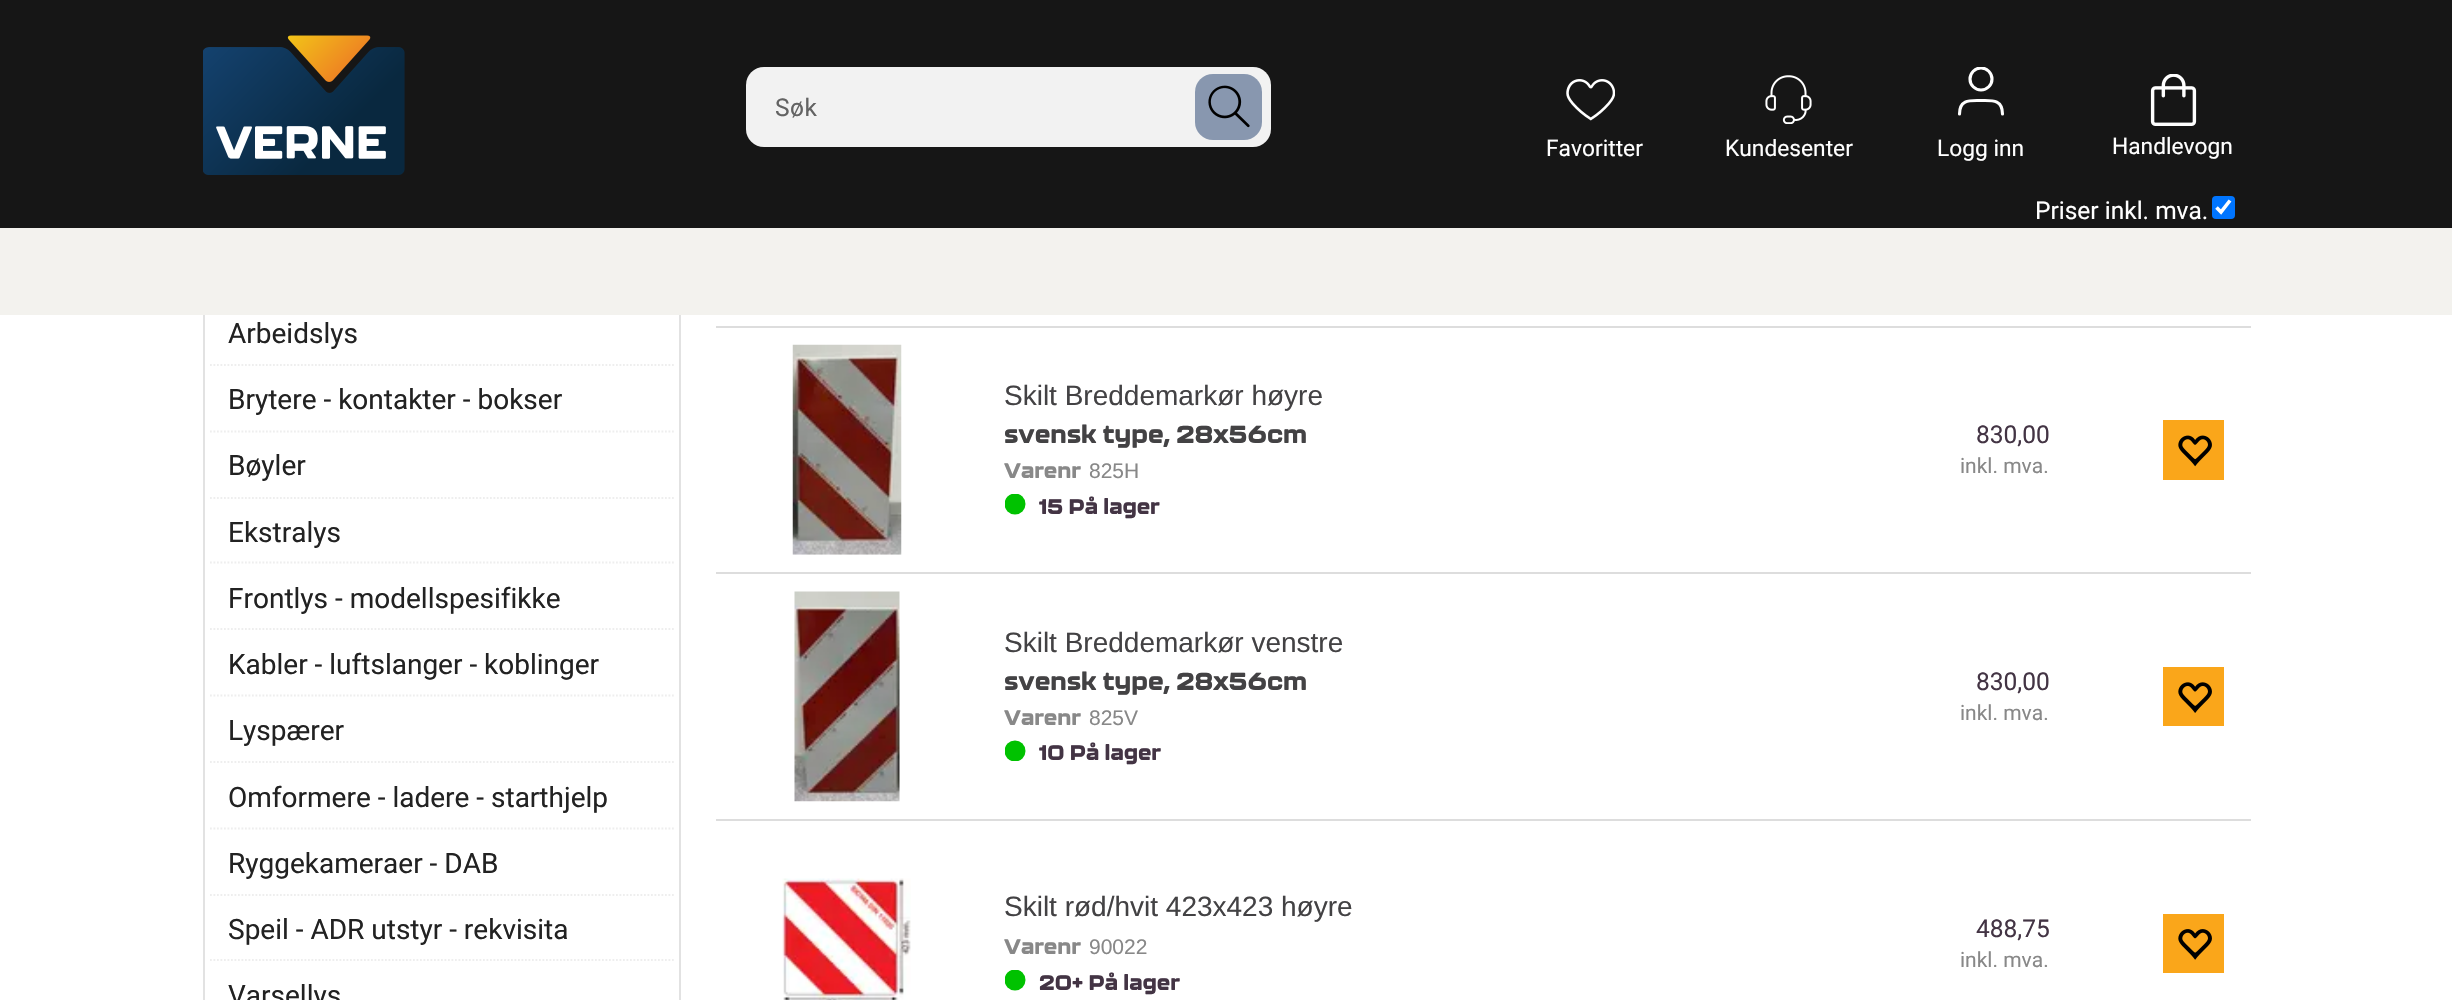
void draw(SkCanvas* canvas) {
  SkPaint paint;
  paint.setAntiAlias(true);
  auto face = [&](const char* family, int weight, float size, bool italic = false) {
    SkFontStyle style(weight, SkFontStyle::kNormal_Width,
      italic ? SkFontStyle::kItalic_Slant : SkFontStyle::kUpright_Slant);
    SkFont result(fontMgr->matchFamilyStyle(family, style), size);
    result.setSubpixel(true);
    return result;
  };
  auto writeSpaced = [&](const char* s, float x, float y, const SkFont& font, const SkPaint& ink, float letter, float word) {
    std::vector<SkGlyphID> glyphs(font.countText(s, strlen(s), SkTextEncoding::kUTF8));
    std::vector<float> xs(glyphs.size());
    font.textToGlyphs(s, strlen(s), SkTextEncoding::kUTF8, glyphs);
    font.getXPos(glyphs, xs, x);
    float extra = 0;
    for (size_t i = 0; i < glyphs.size(); i++) {
      xs[i] += extra;
      extra += letter + word * (glyphs[i] == font.unicharToGlyph(' '));
    }
    canvas->drawTextBlob(SkTextBlob::MakeFromPosHGlyphs(glyphs, xs, y, font), 0, 0, ink);
  };
  auto paste = [&](const char* path, float x, float y, float w, float h) {
    auto image = SkImages::DeferredFromEncodedData(SkData::MakeFromFileName(path));
    canvas->drawImageRect(image, SkRect::MakeXYWH(x, y, w, h), SkSamplingOptions());
  };
  auto shape = [&](const char* data, bool evenOdd = false) {
    SkPath result = *SkParsePath::FromSVGString(data);
    if (evenOdd) result.setFillType(SkPathFillType::kEvenOdd);
    return result;
  };
  canvas->clear(0xffffffff);
  paint.setColor(0xff161616);
  canvas->drawRect(SkRect::MakeXYWH(0, 0, 2452, 228), paint);
  paste("img/1.png", 203, 35, 202, 140);
  paint.setColor(0xfff2f2f2);
  canvas->drawRoundRect(SkRect::MakeXYWH(746, 67, 525, 80), 18, 18, paint);
  paint.setColor(0xff8897af);
  canvas->drawRoundRect(SkRect::MakeXYWH(1195, 74, 67, 66), 18, 18, paint);
  paste("img/2.png", 1208, 85, 42, 43);
  paste("img/3.png", 1566, 79, 49, 42);
  paste("img/4.png", 2150, 74, 47, 52);
  paste("img/5.png", 1765, 75, 47, 49);
  paint.setStroke(true);
  paint.setStrokeWidth(3.1f);
  paint.setStrokeCap(SkPaint::kRound_Cap);
  paint.setStrokeJoin(SkPaint::kRound_Join);
  paint.setColor(0xffffffff);
  canvas->drawPath(shape("M2002.5 114C2002.5 99 1992 100.5 1981 100.5C1970 100.5 1959.5 99 1959.5 114"), paint);
  canvas->save();
  canvas->clipRect(SkRect::MakeXYWH(1957, 67, 49, 49));
  paint.setStrokeCap(SkPaint::kButt_Cap);
  paint.setStrokeJoin(SkPaint::kMiter_Join);
  canvas->drawCircle(1981, 79, 11, paint);
  canvas->restore();
  paint.setStroke(false);
  paint.setColor(0xff0075ff);
  canvas->drawRoundRect(SkRect::MakeXYWH(2212, 196, 23, 23), 4, 4, paint);
  paint.setStroke(true);
  paint.setStrokeWidth(3.6f);
  paint.setColor(0xffffffff);
  canvas->drawPath(shape("M2216.5 207.5L2221 212L2230 200.5"), paint);
  paint.setStrokeWidth(2);
  paint.setColor(0xffe2e2e2);
  canvas->drawRect(SkRect::MakeXYWH(204, 300, 476, 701), paint);
  paint.setStroke(false);
  paint.setColor(0xfff3f2ee);
  canvas->drawRect(SkRect::MakeXYWH(0, 228, 2452, 87), paint);
  paint.setStroke(true);
  paint.setStrokeWidth(1.8f);
  paint.setColor(0xffeeeeee);
  paint.setPathEffect(SkDashPathEffect::Make({{1.75f, 1.75f}}, 0));
  canvas->drawPath(shape("M210 365H674"), paint);
  paint.setPathEffect(nullptr);
  paint.setPathEffect(SkDashPathEffect::Make({{1.75f, 1.75f}}, 0));
  canvas->drawPath(shape("M210 431.5H674"), paint);
  paint.setPathEffect(nullptr);
  paint.setPathEffect(SkDashPathEffect::Make({{1.75f, 1.75f}}, 0));
  canvas->drawPath(shape("M210 498H674"), paint);
  paint.setPathEffect(nullptr);
  paint.setPathEffect(SkDashPathEffect::Make({{1.75f, 1.75f}}, 0));
  canvas->drawPath(shape("M210 562.5H674"), paint);
  paint.setPathEffect(nullptr);
  paint.setPathEffect(SkDashPathEffect::Make({{1.75f, 1.75f}}, 0));
  canvas->drawPath(shape("M210 629H674"), paint);
  paint.setPathEffect(nullptr);
  paint.setPathEffect(SkDashPathEffect::Make({{1.75f, 1.75f}}, 0));
  canvas->drawPath(shape("M210 695.5H674"), paint);
  paint.setPathEffect(nullptr);
  paint.setPathEffect(SkDashPathEffect::Make({{1.75f, 1.75f}}, 0));
  canvas->drawPath(shape("M210 762H674"), paint);
  paint.setPathEffect(nullptr);
  paint.setPathEffect(SkDashPathEffect::Make({{1.75f, 1.75f}}, 0));
  canvas->drawPath(shape("M210 828.5H674"), paint);
  paint.setPathEffect(nullptr);
  paint.setPathEffect(SkDashPathEffect::Make({{1.75f, 1.75f}}, 0));
  canvas->drawPath(shape("M210 895H674"), paint);
  paint.setPathEffect(nullptr);
  paint.setPathEffect(SkDashPathEffect::Make({{1.75f, 1.75f}}, 0));
  canvas->drawPath(shape("M210 960H674"), paint);
  paint.setPathEffect(nullptr);
  paint.setStroke(false);
  paint.setColor(0xffdddddd);
  canvas->drawRect(SkRect::MakeXYWH(716, 326, 1535, 2), paint);
  paste("img/6.png", 792, 344, 110, 211);
  canvas->save();
  canvas->clipRect(SkRect::MakeXYWH(1005, 494, 21, 21));
  paint.setColor(0xff00c200);
  canvas->drawCircle(1015, 504, 10.5f, paint);
  canvas->restore();
  paint.setColor(0xfffaa61a);
  canvas->drawRect(SkRect::MakeXYWH(2163, 420, 61, 60), paint);
  paste("img/7.png", 2178, 435, 34, 32);
  paint.setColor(0xffdddddd);
  canvas->drawRect(SkRect::MakeXYWH(716, 572, 1535, 2), paint);
  paste("img/8.png", 794, 591, 106, 211);
  canvas->save();
  canvas->clipRect(SkRect::MakeXYWH(1005, 740, 21, 21));
  paint.setColor(0xff00c200);
  canvas->drawCircle(1015, 751, 10.5f, paint);
  canvas->restore();
  paint.setColor(0xfffaa61a);
  canvas->drawRect(SkRect::MakeXYWH(2163, 667, 61, 59), paint);
  paste("img/9.png", 2178, 682, 34, 31);
  paint.setColor(0xffdddddd);
  canvas->drawRect(SkRect::MakeXYWH(716, 819, 1535, 2), paint);
  paste("img/10.png", 782, 878, 129, 122);
  canvas->save();
  canvas->clipRect(SkRect::MakeXYWH(1005, 970, 21, 21));
  paint.setColor(0xff00c200);
  canvas->drawCircle(1015, 980, 10.5f, paint);
  canvas->restore();
  paint.setColor(0xfffaa61a);
  canvas->drawRect(SkRect::MakeXYWH(2163, 914, 61, 59), paint);
  paste("img/11.png", 2178, 929, 34, 31);
  auto f0 = face("Roboto", 400, 24.5f);
  paint.setColor(0xff636363);
  writeSpaced("Søk", 775, 116, f0, paint, 0.5f, 0);
  auto f1 = face("Roboto", 400, 22.75f);
  paint.setColor(0xffffffff);
  {
    const struct { const char* s; float x, y; } items[] = {
      {"Favoritter", 1546, 156},
      {"Handlevogn", 2112, 154},
      {"Kundesenter", 1725, 156},
      {"Logg inn", 1937, 156},
    };
    for (auto [s, x, y] : items) {
      canvas->drawString(s, x, y, f1, paint);
    }
  }
  canvas->drawString("Priser inkl. mva.", 2035, 219, f0, paint);
  auto f2 = face("Roboto", 400, 28);
  paint.setColor(0xff222222);
  {
    const struct { const char* s; float x, y; } items[] = {
      {"Arbeidslys", 228, 343},
      {"Brytere - kontakter - bokser", 228, 409},
      {"Bøyler", 228, 475},
      {"Ekstralys", 228, 542},
      {"Frontlys - modellspesifikke", 228, 608},
      {"Kabler - luftslanger - koblinger", 228, 674},
      {"Lyspærer", 228, 740},
      {"Omformere - ladere - starthjelp", 228, 807},
      {"Ryggekameraer - DAB", 228, 873},
      {"Speil - ADR utstyr - rekvisita", 228, 939},
      {"Varsellys", 228, 1005},
    };
    for (auto [s, x, y] : items) {
      canvas->drawString(s, x, y, f2, paint);
    }
  }
  auto f3 = face("Liberation Sans", 400, 28);
  paint.setColor(0xff434244);
  canvas->drawString("Skilt Breddemarkør høyre", 1004, 405, f3, paint);
  auto f4 = face("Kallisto", 900, 24.5f);
  canvas->drawString("svensk type, 28x56cm", 1004, 443, f4, paint);
  auto f5 = face("Kallisto", 900, 21);
  paint.setColor(0xff888888);
  canvas->drawString("Varenr", 1004, 478, f5, paint);
  auto f6 = face("Liberation Sans", 400, 21);
  canvas->drawString("825H", 1089, 478, f6, paint);
  paint.setColor(0xff433444);
  canvas->drawString("15 På lager", 1039, 514, f5, paint);
  canvas->drawString("830,00", 1976, 443, f0, paint);
  auto f7 = face("Roboto", 400, 21);
  paint.setColor(0xff888888);
  canvas->drawString("inkl. mva.", 1960, 473, f7, paint);
  paint.setColor(0xff434244);
  canvas->drawString("Skilt Breddemarkør venstre", 1004, 652, f3, paint);
  canvas->drawString("svensk type, 28x56cm", 1004, 690, f4, paint);
  paint.setColor(0xff888888);
  canvas->drawString("Varenr", 1004, 725, f5, paint);
  canvas->drawString("825V", 1089, 725, f6, paint);
  paint.setColor(0xff433444);
  canvas->drawString("10 På lager", 1039, 760, f5, paint);
  canvas->drawString("830,00", 1976, 690, f0, paint);
  paint.setColor(0xff888888);
  canvas->drawString("inkl. mva.", 1960, 720, f7, paint);
  paint.setColor(0xff434244);
  canvas->drawString("Skilt rød/hvit 423x423 høyre", 1004, 916, f3, paint);
  paint.setColor(0xff888888);
  canvas->drawString("Varenr", 1004, 954, f5, paint);
  canvas->drawString("90022", 1089, 954, f6, paint);
  paint.setColor(0xff433444);
  canvas->drawString("20+ På lager", 1039, 990, f5, paint);
  canvas->drawString("488,75", 1976, 937, f0, paint);
  paint.setColor(0xff888888);
  canvas->drawString("inkl. mva.", 1960, 967, f7, paint);
}
